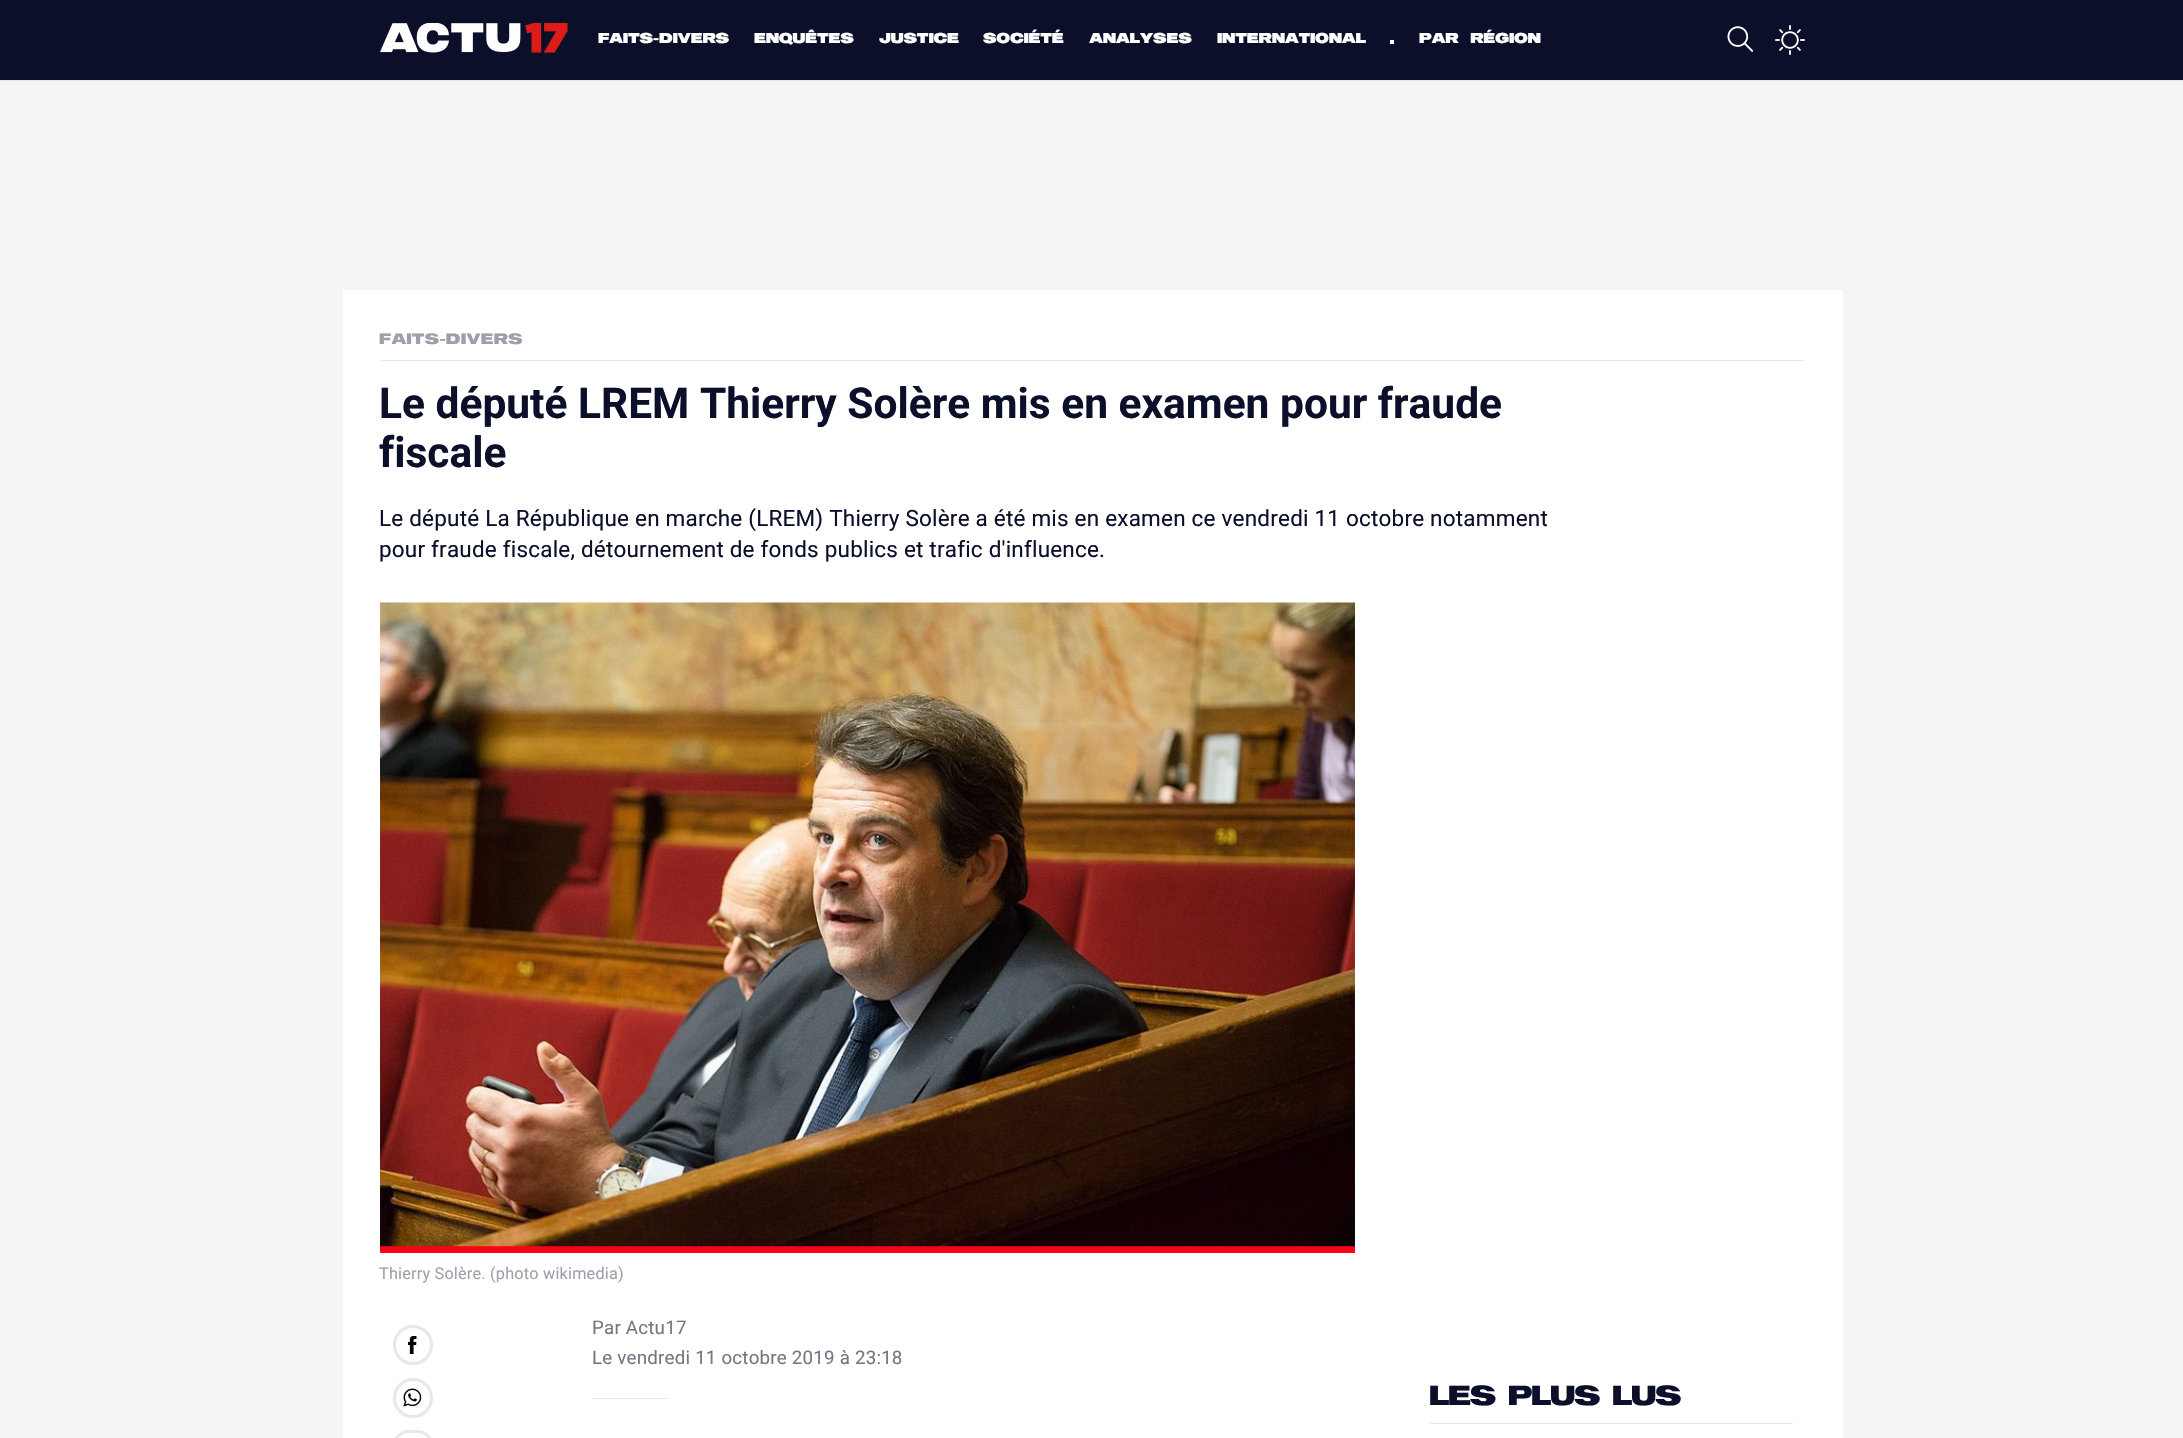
void draw(SkCanvas* canvas) {
  SkPaint paint;
  paint.setAntiAlias(true);
  auto face = [&](const char* family, int weight, float size, bool italic = false) {
    SkFontStyle style(weight, SkFontStyle::kNormal_Width,
      italic ? SkFontStyle::kItalic_Slant : SkFontStyle::kUpright_Slant);
    SkFont result(fontMgr->matchFamilyStyle(family, style), size);
    result.setSubpixel(true);
    return result;
  };
  auto writeSpaced = [&](const char* s, float x, float y, const SkFont& font, const SkPaint& ink, float letter, float word) {
    std::vector<SkGlyphID> glyphs(font.countText(s, strlen(s), SkTextEncoding::kUTF8));
    std::vector<float> xs(glyphs.size());
    font.textToGlyphs(s, strlen(s), SkTextEncoding::kUTF8, glyphs);
    font.getXPos(glyphs, xs, x);
    float extra = 0;
    for (size_t i = 0; i < glyphs.size(); i++) {
      xs[i] += extra;
      extra += letter + word * (glyphs[i] == font.unicharToGlyph(' '));
    }
    canvas->drawTextBlob(SkTextBlob::MakeFromPosHGlyphs(glyphs, xs, y, font), 0, 0, ink);
  };
  auto paste = [&](const char* path, float x, float y, float w, float h) {
    auto image = SkImages::DeferredFromEncodedData(SkData::MakeFromFileName(path));
    canvas->drawImageRect(image, SkRect::MakeXYWH(x, y, w, h), SkSamplingOptions());
  };
  canvas->clear(0xfff6f5f6);
  paint.setColor(0xff0c0f2a);
  canvas->drawRect(SkRect::MakeXYWH(0, 0, 2183, 80), paint);
  paint.setColor(0xffe8e8e8);
  canvas->drawRect(SkRect::MakeXYWH(0, 80, 2183, 1), paint);
  paste("img/1.png", 380, 23, 188, 30);
  paint.setColor(0xffffffff);
  canvas->drawRect(SkRect::MakeXYWH(1390, 40, 4, 4), paint);
  paste("img/2.png", 1727, 26, 27, 26);
  paste("img/3.png", 1775, 25, 30, 30);
  {
    const struct { float x, y, w, h; SkColor color; } items[] = {
      {343, 290, 1500, 1148, 0xffffffff},
      {380, 360, 1425, 1, 0xffe8e8e8},
      {380, 1246, 975, 7, 0xffff0017},
    };
    for (auto [x, y, w, h, color] : items) {
      paint.setColor(color);
      canvas->drawRect(SkRect::MakeXYWH(x, y, w, h), paint);
    }
  }
  paste("img/4.png", 380, 602, 975, 645);
  paint.setStroke(true);
  paint.setStrokeWidth(3);
  paint.setColor(0xffe8e8e8);
  canvas->drawCircle(413, 1345, 18.5f, paint);
  paste("img/5.png", 408, 1336, 9, 18);
  canvas->drawCircle(413, 1398, 18.5f, paint);
  paste("img/6.png", 403, 1388, 19, 19);
  canvas->drawRoundRect(SkRect::MakeXYWH(394.5f, 1431.5f, 37, 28), 18.5f, 18.5f, paint);
  paint.setStroke(false);
  canvas->drawRect(SkRect::MakeXYWH(593, 1398, 75, 1), paint);
  canvas->drawRect(SkRect::MakeXYWH(1430, 1423, 363, 1), paint);
  auto f0 = face("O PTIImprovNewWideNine", 700, 12.5f);
  paint.setColor(0xffffffff);
  {
    const struct { const char* s; float x, y; } items[] = {
      {"FAITS-DIVERS", 598, 43},
      {"ENQUÊTES", 754, 43},
      {"JUSTICE", 879, 43},
      {"SOCIÉTÉ", 983, 43},
      {"ANALYSES", 1089, 43},
      {"INTERNATIONAL", 1217, 43},
    };
    for (auto [s, x, y] : items) {
      writeSpaced(s, x, y, f0, paint, 0.2f, 0);
    }
  }
  writeSpaced("PAR RÉGION", 1419, 43, f0, paint, 0.2f, 9);
  auto f1 = face("O PTIImprovNewWideNine", 500, 13.75f);
  paint.setColor(0xff9e9faa);
  writeSpaced("FAITS-DIVERS", 379, 344, f1, paint, 0.2f, 0);
  auto f2 = face("Roboto", 700, 42.5f);
  paint.setColor(0xff0c0f2a);
  canvas->drawString("Le député LREM Thierry Solère mis en examen pour fraude", 379, 418, f2, paint);
  canvas->drawString("fiscale", 379, 467, f2, paint);
  auto f3 = face("Roboto", 400, 22.5f);
  writeSpaced("Le député La République en marche (LREM) Thierry Solère a été mis en examen ce vendredi 11 octobre notamment", 379, 526, f3, paint, 0.2f, 0);
  writeSpaced("pour fraude fiscale, détournement de fonds publics et trafic d'influence.", 379, 557, f3, paint, 0.2f, 0);
  auto f4 = face("Roboto", 400, 16.25f);
  paint.setColor(0xff9e9faa);
  writeSpaced("Thierry Solère. (photo wikimedia)", 379, 1279, f4, paint, 0.2f, 0);
  auto f5 = face("Roboto", 400, 18.75f);
  paint.setColor(0xff757683);
  writeSpaced("Par Actu17", 592, 1334, f5, paint, 0.2f, 0);
  writeSpaced("Le vendredi 11 octobre 2019 à 23:18", 592, 1364, f5, paint, 0.2f, 0);
  auto f6 = face("O PTIImprovNewWideNine", 500, 25);
  paint.setColor(0xff0c0f2a);
  writeSpaced("LES PLUS LUS", 1429, 1405, f6, paint, -1.25f, 9);
}
